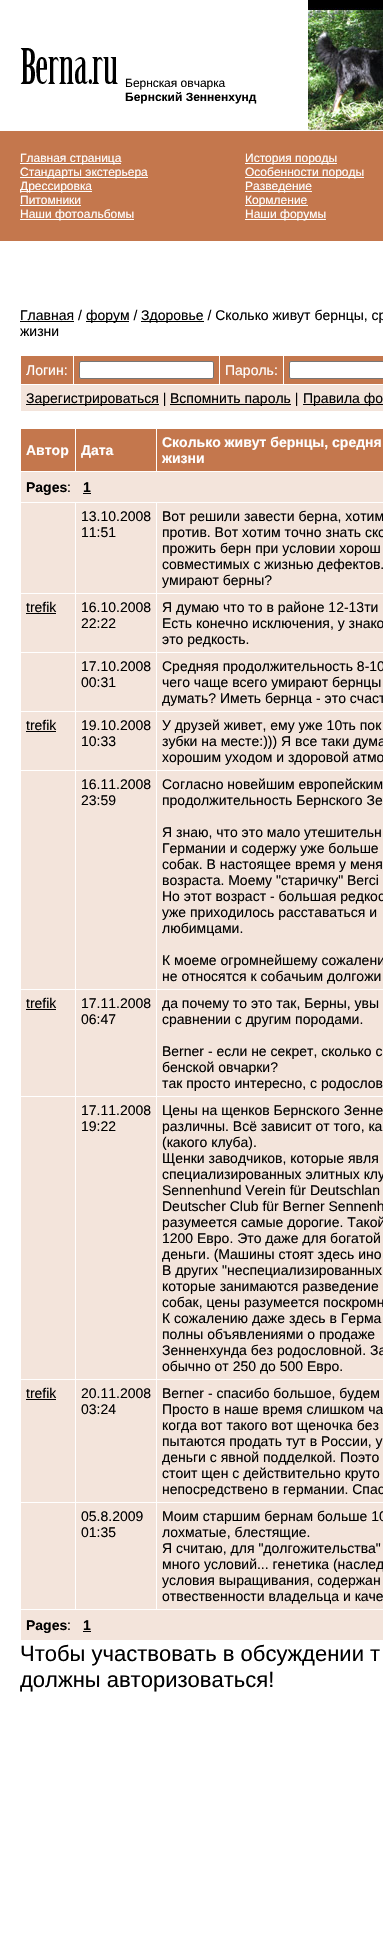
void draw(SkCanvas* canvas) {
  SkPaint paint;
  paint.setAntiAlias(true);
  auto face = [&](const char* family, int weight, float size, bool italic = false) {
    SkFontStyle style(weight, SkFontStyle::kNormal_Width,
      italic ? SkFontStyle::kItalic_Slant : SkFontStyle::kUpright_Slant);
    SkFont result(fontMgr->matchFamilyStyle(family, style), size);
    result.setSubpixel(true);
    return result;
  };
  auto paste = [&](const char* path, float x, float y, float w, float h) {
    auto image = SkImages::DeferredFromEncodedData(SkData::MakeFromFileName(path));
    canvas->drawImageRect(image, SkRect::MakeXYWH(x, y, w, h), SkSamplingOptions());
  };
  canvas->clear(0xffffffff);
  paste("img/1.png", 20, 48, 98, 36);
  paste("img/2.png", 308, 0, 75, 131);
  {
    const struct { float x, y, w, h; SkColor color; } items[] = {
      {0, 131, 383, 110, 0xffc4774d},
      {20, 163, 101, 1, 0xffffffff},
      {20, 177, 128, 1, 0xffffffff},
      {20, 191, 72, 1, 0xffffffff},
      {20, 205, 61, 1, 0xffffffff},
      {20, 219, 114, 1, 0xffffffff},
      {245, 163, 92, 1, 0xffffffff},
      {245, 177, 119, 1, 0xffffffff},
      {245, 191, 67, 1, 0xffffffff},
      {245, 205, 63, 1, 0xffffffff},
      {245, 219, 81, 1, 0xffffffff},
      {20, 321, 54, 1, 0xff000000},
      {86, 321, 43, 1, 0xff000000},
      {141, 321, 63, 1, 0xff000000},
      {21, 356, 52, 28, 0xffc4774d},
      {74, 356, 145, 28, 0xffc4774d},
    };
    for (auto [x, y, w, h, color] : items) {
      paint.setColor(color);
      canvas->drawRect(SkRect::MakeXYWH(x, y, w, h), paint);
    }
  }
  paint.setColor(0xffffffff);
  canvas->drawRoundRect(SkRect::MakeXYWH(79.5f, 361.5f, 134, 17), 1.5f, 1.5f, paint);
  paint.setStroke(true);
  paint.setStrokeWidth(1);
  paint.setColor(0xff767676);
  canvas->drawRoundRect(SkRect::MakeXYWH(79.5f, 361.5f, 134, 17), 1.5f, 1.5f, paint);
  paint.setStroke(false);
  paint.setColor(0xffc4774d);
  canvas->drawRect(SkRect::MakeXYWH(220, 356, 63, 28), paint);
  canvas->drawRect(SkRect::MakeXYWH(284, 356, 99, 28), paint);
  paint.setColor(0xffffffff);
  canvas->drawRoundRect(SkRect::MakeXYWH(289.5f, 361.5f, 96, 17), 1.5f, 1.5f, paint);
  paint.setStroke(true);
  paint.setColor(0xff767676);
  canvas->drawRoundRect(SkRect::MakeXYWH(289.5f, 361.5f, 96, 17), 1.5f, 1.5f, paint);
  paint.setStroke(false);
  {
    const struct { float x, y, w, h; SkColor color; } items[] = {
      {21, 385, 362, 26, 0xfff3e4db},
      {26, 404, 133, 1, 0xff000000},
      {170, 404, 121, 1, 0xff000000},
      {303, 404, 80, 1, 0xff000000},
      {21, 429, 54, 42, 0xffc4774d},
      {76, 429, 80, 42, 0xffc4774d},
      {157, 429, 226, 42, 0xffc4774d},
      {21, 472, 362, 30, 0xfff3e4db},
      {83, 493, 8, 1, 0xff000000},
      {21, 503, 54, 90, 0xfff3e4db},
      {76, 503, 80, 90, 0xfff3e4db},
      {157, 503, 226, 90, 0xfff3e4db},
      {21, 594, 54, 58, 0xfff3e4db},
      {26, 613, 30, 1, 0xff000000},
      {76, 594, 80, 58, 0xfff3e4db},
      {157, 594, 226, 58, 0xfff3e4db},
      {21, 653, 54, 58, 0xfff3e4db},
      {76, 653, 80, 58, 0xfff3e4db},
      {157, 653, 226, 58, 0xfff3e4db},
      {21, 712, 54, 58, 0xfff3e4db},
      {26, 731, 30, 1, 0xff000000},
      {76, 712, 80, 58, 0xfff3e4db},
      {157, 712, 226, 58, 0xfff3e4db},
      {21, 771, 54, 218, 0xfff3e4db},
      {76, 771, 80, 218, 0xfff3e4db},
      {157, 771, 226, 218, 0xfff3e4db},
      {21, 990, 54, 106, 0xfff3e4db},
      {26, 1009, 30, 1, 0xff000000},
      {76, 990, 80, 106, 0xfff3e4db},
      {157, 990, 226, 106, 0xfff3e4db},
      {21, 1097, 54, 282, 0xfff3e4db},
      {76, 1097, 80, 282, 0xfff3e4db},
      {157, 1097, 226, 282, 0xfff3e4db},
      {21, 1380, 54, 122, 0xfff3e4db},
      {26, 1399, 30, 1, 0xff000000},
      {76, 1380, 80, 122, 0xfff3e4db},
      {157, 1380, 226, 122, 0xfff3e4db},
      {21, 1503, 54, 106, 0xfff3e4db},
      {76, 1503, 80, 106, 0xfff3e4db},
      {157, 1503, 226, 106, 0xfff3e4db},
      {21, 1610, 362, 30, 0xfff3e4db},
      {83, 1631, 8, 1, 0xff000000},
    };
    for (auto [x, y, w, h, color] : items) {
      paint.setColor(color);
      canvas->drawRect(SkRect::MakeXYWH(x, y, w, h), paint);
    }
  }
  auto f0 = face("Liberation Sans", 400, 12);
  canvas->drawString("Бернская овчарка", 125, 87, f0, paint);
  auto f1 = face("Liberation Sans", 700, 12);
  canvas->drawString("Бернский Зенненхунд", 125, 101, f1, paint);
  paint.setColor(0xffffffff);
  {
    const struct { const char* s; float x, y; } items[] = {
      {"Главная страница", 20, 162},
      {"Стандарты экстерьера", 20, 176},
      {"Дрессировка", 20, 190},
      {"Питомники", 20, 204},
      {"Наши фотоальбомы", 20, 218},
      {"История породы", 245, 162},
      {"Особенности породы", 245, 176},
      {"Разведение", 245, 190},
      {"Кормление", 245, 204},
      {"Наши форумы", 245, 218},
    };
    for (auto [s, x, y] : items) {
      canvas->drawString(s, x, y, f0, paint);
    }
  }
  auto f2 = face("Liberation Sans", 400, 14);
  paint.setColor(0xff000000);
  {
    const struct { const char* s; float x, y; } items[] = {
      {"Главная /", 20, 320},
      {"форум /", 86, 320},
      {"Здоровье / Сколько живут бернцы, ср", 141, 320},
      {"жизни", 20, 336},
    };
    for (auto [s, x, y] : items) {
      canvas->drawString(s, x, y, f2, paint);
    }
  }
  paint.setColor(0xffffffff);
  canvas->drawString("Логин:", 26, 375, f2, paint);
  canvas->drawString("Пароль:", 225, 375, f2, paint);
  paint.setColor(0xff000000);
  {
    const struct { const char* s; float x, y; } items[] = {
      {"Зарегистрироваться |", 26, 403},
      {"Вспомнить пароль |", 170, 403},
      {"Правила фо", 303, 403},
    };
    for (auto [s, x, y] : items) {
      canvas->drawString(s, x, y, f2, paint);
    }
  }
  auto f3 = face("Liberation Sans", 700, 14);
  paint.setColor(0xffffffff);
  {
    const struct { const char* s; float x, y; } items[] = {
      {"Автор", 26, 455},
      {"Дата", 81, 455},
      {"Сколько живут бернцы, средня", 162, 447},
      {"жизни", 162, 463},
    };
    for (auto [s, x, y] : items) {
      canvas->drawString(s, x, y, f3, paint);
    }
  }
  paint.setColor(0xff000000);
  canvas->drawString("Pages", 26, 492, f3, paint);
  canvas->drawString(":", 67, 492, f2, paint);
  canvas->drawString("1", 83, 492, f3, paint);
  {
    const struct { const char* s; float x, y; } items[] = {
      {"13.10.2008", 81, 521},
      {"11:51", 81, 537},
      {"Вот решили завести берна, хотим", 162, 521},
      {"против. Вот хотим точно знать ско", 162, 537},
      {"прожить берн при условии хорош", 162, 553},
      {"совместимых с жизнью дефектов.", 162, 569},
      {"умирают берны?", 162, 585},
      {"trefik", 26, 612},
      {"16.10.2008", 81, 612},
      {"22:22", 81, 628},
      {"Я думаю что то в районе 12-13ти", 162, 612},
      {"Есть конечно исключения, у знако", 162, 628},
      {"это редкость.", 162, 644},
      {"17.10.2008", 81, 671},
      {"00:31", 81, 687},
      {"Средняя продолжительность 8-10", 162, 671},
      {"чего чаще всего умирают бернцы", 162, 687},
      {"думать? Иметь бернца - это счаст", 162, 703},
      {"trefik", 26, 730},
      {"19.10.2008", 81, 730},
      {"10:33", 81, 746},
      {"У друзей живет, ему уже 10ть пок", 162, 730},
      {"зубки на месте:))) Я все таки дума", 162, 746},
      {"хорошим уходом и здоровой атмо", 162, 762},
      {"16.11.2008", 81, 789},
      {"23:59", 81, 805},
      {"Согласно новейшим европейским", 162, 789},
      {"продолжительность Бернского Зе", 162, 805},
      {"Я знаю, что это мало утешительн", 162, 837},
      {"Германии и содержу уже больше", 162, 853},
      {"собак. В настоящее время у меня", 162, 869},
      {"возраста. Моему \"старичку\" Berci", 162, 885},
      {"Но этот возраст - большая редкос", 162, 901},
      {"уже приходилось расставаться и", 162, 917},
      {"любимцами.", 162, 933},
      {"К моеме огромнейшему сожалени", 162, 965},
      {"не относятся к собачьим долгожи", 162, 981},
      {"trefik", 26, 1008},
      {"17.11.2008", 81, 1008},
      {"06:47", 81, 1024},
      {"да почему то это так, Берны, увы", 162, 1008},
      {"сравнении с другим породами.", 162, 1024},
      {"Berner - если не секрет, сколько с", 162, 1056},
      {"бенской овчарки?", 162, 1072},
      {"так просто интересно, с родослов", 162, 1088},
      {"17.11.2008", 81, 1115},
      {"19:22", 81, 1131},
      {"Цены на щенков Бернского Зенне", 162, 1115},
      {"различны. Всё зависит от того, ка", 162, 1131},
      {"(какого клуба).", 162, 1147},
      {"Щенки заводчиков, которые явля", 162, 1163},
      {"специализированных элитных клу", 162, 1179},
      {"Sennenhund Verein für Deutschlan", 162, 1195},
      {"Deutscher Club für Berner Sennenh", 162, 1211},
      {"разумеется самые дорогие. Такой", 162, 1227},
      {"1200 Евро. Это даже для богатой", 162, 1243},
      {"деньги. (Машины стоят здесь ино", 162, 1259},
      {"В других \"неспециализированных", 162, 1275},
      {"которые занимаются разведение", 162, 1291},
      {"собак, цены разумеется поскромн", 162, 1307},
      {"К сожалению даже здесь в Герма", 162, 1323},
      {"полны объявлениями о продаже", 162, 1339},
      {"Зенненхунда без родословной. За", 162, 1355},
      {"обычно от 250 до 500 Евро.", 162, 1371},
      {"trefik", 26, 1398},
      {"20.11.2008", 81, 1398},
      {"03:24", 81, 1414},
      {"Berner - спасибо большое, будем", 162, 1398},
      {"Просто в наше время слишком ча", 162, 1414},
      {"когда вот такого вот щеночка без", 162, 1430},
      {"пытаются продать тут в России, у", 162, 1446},
      {"деньги с явной подделкой. Поэто", 162, 1462},
      {"стоит щен с действительно круто", 162, 1478},
      {"непосредствено в германии. Спас", 162, 1494},
      {"05.8.2009", 81, 1521},
      {"01:35", 81, 1537},
      {"Моим старшим бернам больше 10", 162, 1521},
      {"лохматые, блестящие.", 162, 1537},
      {"Я считаю, для \"долгожительства\"", 162, 1553},
      {"много условий... генетика (наслед", 162, 1569},
      {"условия выращивания, содержан", 162, 1585},
      {"отвественности владельца и каче", 162, 1601},
    };
    for (auto [s, x, y] : items) {
      canvas->drawString(s, x, y, f2, paint);
    }
  }
  canvas->drawString("Pages", 26, 1630, f3, paint);
  canvas->drawString(":", 67, 1630, f2, paint);
  canvas->drawString("1", 83, 1630, f3, paint);
  auto f4 = face("Liberation Sans", 400, 22);
  canvas->drawString("Чтобы участвовать в обсуждении т", 20, 1661, f4, paint);
  canvas->drawString("должны авторизоваться!", 20, 1687, f4, paint);
}
